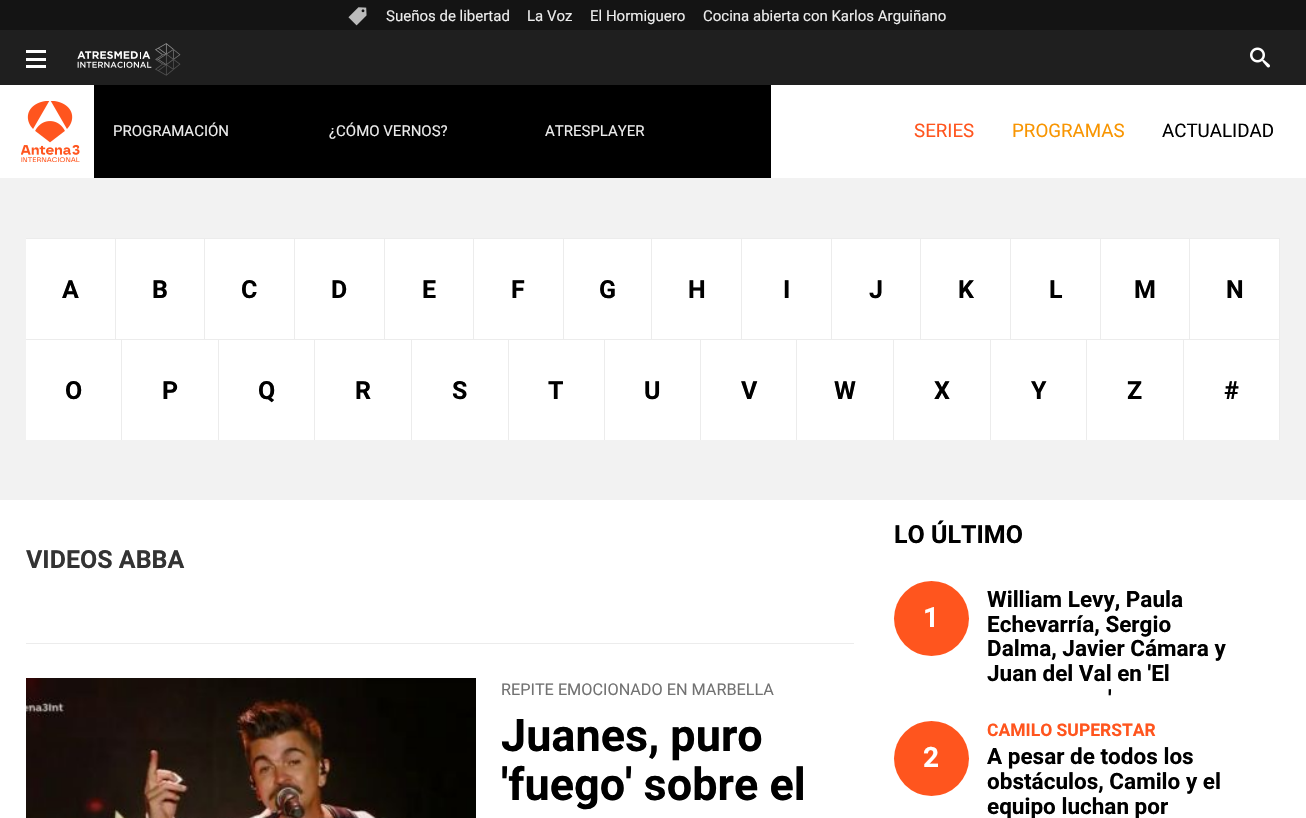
void draw(SkCanvas* canvas) {
  SkPaint paint;
  paint.setAntiAlias(true);
  auto face = [&](const char* family, int weight, float size, bool italic = false) {
    SkFontStyle style(weight, SkFontStyle::kNormal_Width,
      italic ? SkFontStyle::kItalic_Slant : SkFontStyle::kUpright_Slant);
    SkFont result(fontMgr->matchFamilyStyle(family, style), size);
    result.setSubpixel(true);
    return result;
  };
  auto paste = [&](const char* path, float x, float y, float w, float h) {
    auto image = SkImages::DeferredFromEncodedData(SkData::MakeFromFileName(path));
    canvas->drawImageRect(image, SkRect::MakeXYWH(x, y, w, h), SkSamplingOptions());
  };
  canvas->clear(0xffffffff);
  paint.setColor(0xff141414);
  canvas->drawRect(SkRect::MakeXYWH(0, 0, 1306, 30), paint);
  paste("img/1.png", 348, 7, 19, 19);
  paint.setColor(0xff1f1f1f);
  canvas->drawRect(SkRect::MakeXYWH(0, 30, 1306, 55), paint);
  paste("img/2.png", 21, 101, 59, 61);
  {
    const struct { float x, y, w, h; SkColor color; } items[] = {
      {26, 58, 20, 3, 0xffffffff},
      {26, 50, 20, 3, 0xffffffff},
      {26, 65, 20, 3, 0xffffffff},
    };
    for (auto [x, y, w, h, color] : items) {
      paint.setColor(color);
      canvas->drawRect(SkRect::MakeXYWH(x, y, w, h), paint);
    }
  }
  paste("img/3.png", 77, 43, 104, 33);
  paste("img/4.png", 1250, 47, 20, 21);
  {
    const struct { float x, y, w, h; SkColor color; } items[] = {
      {94, 85, 677, 93, 0xff000000},
      {0, 178, 1306, 322, 0xfff2f2f2},
      {26, 239, 89, 100, 0xffffffff},
      {26, 238, 1254, 1, 0xffececec},
      {115, 238, 1, 101, 0xffececec},
      {116, 239, 88, 100, 0xffffffff},
      {204, 238, 1, 101, 0xffececec},
      {205, 239, 89, 100, 0xffffffff},
      {294, 238, 1, 101, 0xffececec},
      {295, 239, 89, 100, 0xffffffff},
      {384, 238, 1, 101, 0xffececec},
      {385, 239, 88, 100, 0xffffffff},
      {473, 238, 1, 101, 0xffececec},
      {474, 239, 89, 100, 0xffffffff},
      {563, 238, 1, 101, 0xffececec},
      {564, 239, 356, 100, 0xffffffff},
      {651, 238, 1, 101, 0xffececec},
      {741, 238, 1, 101, 0xffececec},
      {831, 238, 1, 101, 0xffececec},
      {920, 238, 1, 101, 0xffececec},
      {921, 239, 89, 100, 0xffffffff},
      {1010, 238, 1, 101, 0xffececec},
      {1011, 239, 89, 100, 0xffffffff},
      {1100, 238, 1, 101, 0xffececec},
      {1101, 239, 88, 100, 0xffffffff},
      {1189, 238, 1, 101, 0xffececec},
      {1190, 239, 89, 100, 0xffffffff},
      {1279, 238, 1, 101, 0xffececec},
      {26, 340, 192, 100, 0xffffffff},
      {26, 339, 1254, 1, 0xffececec},
      {121, 339, 1, 101, 0xffececec},
      {218, 339, 1, 101, 0xffececec},
      {219, 340, 95, 100, 0xffffffff},
      {314, 339, 1, 101, 0xffececec},
      {315, 340, 193, 100, 0xffffffff},
      {411, 339, 1, 101, 0xffececec},
      {508, 339, 1, 101, 0xffececec},
      {509, 340, 95, 100, 0xffffffff},
      {604, 339, 1, 101, 0xffececec},
      {605, 340, 95, 100, 0xffffffff},
      {700, 339, 1, 101, 0xffececec},
      {701, 340, 192, 100, 0xffffffff},
      {796, 339, 1, 101, 0xffececec},
      {893, 339, 1, 101, 0xffececec},
      {894, 340, 96, 100, 0xffffffff},
      {990, 339, 1, 101, 0xffececec},
      {991, 340, 192, 100, 0xffffffff},
      {1086, 339, 1, 101, 0xffececec},
      {1183, 339, 1, 101, 0xffececec},
      {1184, 340, 95, 100, 0xffffffff},
      {1279, 339, 1, 101, 0xffececec},
      {26, 643, 828, 1, 0xffececec},
    };
    for (auto [x, y, w, h, color] : items) {
      paint.setColor(color);
      canvas->drawRect(SkRect::MakeXYWH(x, y, w, h), paint);
    }
  }
  paste("img/5.png", 26, 678, 450, 140);
  paint.setColor(0xffff551e);
  canvas->drawCircle(931.5f, 618.5f, 37.5f, paint);
  canvas->drawCircle(931.5f, 758.5f, 37.5f, paint);
  auto f0 = face("Roboto", 400, 15);
  paint.setColor(0xffececec);
  {
    const struct { const char* s; float x, y; } items[] = {
      {"Sueños de libertad", 386, 21},
      {"La Voz", 527, 21},
      {"El Hormiguero", 590, 21},
      {"Cocina abierta con Karlos Arguiñano", 703, 21},
      {"PROGRAMACIÓN", 113, 136},
      {"¿CÓMO VERNOS?", 329, 136},
      {"ATRESPLAYER", 545, 136},
    };
    for (auto [s, x, y] : items) {
      canvas->drawString(s, x, y, f0, paint);
    }
  }
  auto f1 = face("Roboto", 400, 18.75f);
  paint.setColor(0xffff551e);
  canvas->drawString("SERIES", 914, 137, f1, paint);
  paint.setColor(0xfff89501);
  canvas->drawString("PROGRAMAS", 1012, 137, f1, paint);
  paint.setColor(0xff000000);
  canvas->drawString("ACTUALIDAD", 1162, 137, f1, paint);
  auto f2 = face("Roboto", 700, 25);
  {
    const struct { const char* s; float x, y; } items[] = {
      {"A", 62, 298},
      {"B", 152, 298},
      {"C", 241, 298},
      {"D", 331, 298},
      {"E", 422, 298},
      {"F", 511, 298},
      {"G", 599, 298},
      {"H", 688, 298},
      {"I", 783, 298},
      {"J", 869, 298},
      {"K", 958, 298},
      {"L", 1049, 298},
      {"M", 1134, 298},
      {"N", 1226, 298},
      {"O", 65, 399},
      {"P", 162, 399},
      {"Q", 258, 399},
      {"R", 355, 399},
      {"S", 452, 399},
      {"T", 548, 399},
      {"U", 644, 399},
      {"V", 741, 399},
      {"W", 834, 399},
      {"X", 934, 399},
      {"Y", 1031, 399},
      {"Z", 1127, 399},
      {"#", 1224, 399},
    };
    for (auto [s, x, y] : items) {
      canvas->drawString(s, x, y, f2, paint);
    }
  }
  paint.setColor(0xff333333);
  canvas->drawString("VIDEOS ABBA", 26, 568, f2, paint);
  auto f3 = face("Roboto", 400, 16.25f);
  paint.setColor(0xff727272);
  canvas->drawString("REPITE EMOCIONADO EN MARBELLA", 501, 695, f3, paint);
  auto f4 = face("Roboto", 700, 45);
  paint.setColor(0xff000000);
  canvas->drawString("Juanes, puro", 501, 751, f4, paint);
  canvas->drawString("'fuego' sobre el", 501, 800, f4, paint);
  canvas->drawString("LO ÚLTIMO", 894, 543, f2, paint);
  auto f5 = face("Roboto", 700, 28);
  paint.setColor(0xffffffff);
  canvas->drawString("1", 923, 627, f5, paint);
  auto f6 = face("Roboto", 700, 22.5f);
  paint.setColor(0xff000000);
  {
    const struct { const char* s; float x, y; } items[] = {
      {"William Levy, Paula", 987, 607},
      {"Echevarría, Sergio", 987, 632},
      {"Dalma, Javier Cámara y", 987, 656},
      {"Juan del Val en 'El", 987, 681},
      {"'", 1108, 706},
    };
    for (auto [s, x, y] : items) {
      canvas->drawString(s, x, y, f6, paint);
    }
  }
  paint.setColor(0xffffffff);
  canvas->drawString("2", 923, 767, f5, paint);
  auto f7 = face("Roboto", 700, 17.5f);
  paint.setColor(0xffff551e);
  canvas->drawString("CAMILO SUPERSTAR", 987, 736, f7, paint);
  paint.setColor(0xff000000);
  {
    const struct { const char* s; float x, y; } items[] = {
      {"A pesar de todos los", 987, 764},
      {"obstáculos, Camilo y el", 987, 789},
      {"equipo luchan por", 987, 814},
    };
    for (auto [s, x, y] : items) {
      canvas->drawString(s, x, y, f6, paint);
    }
  }
}
